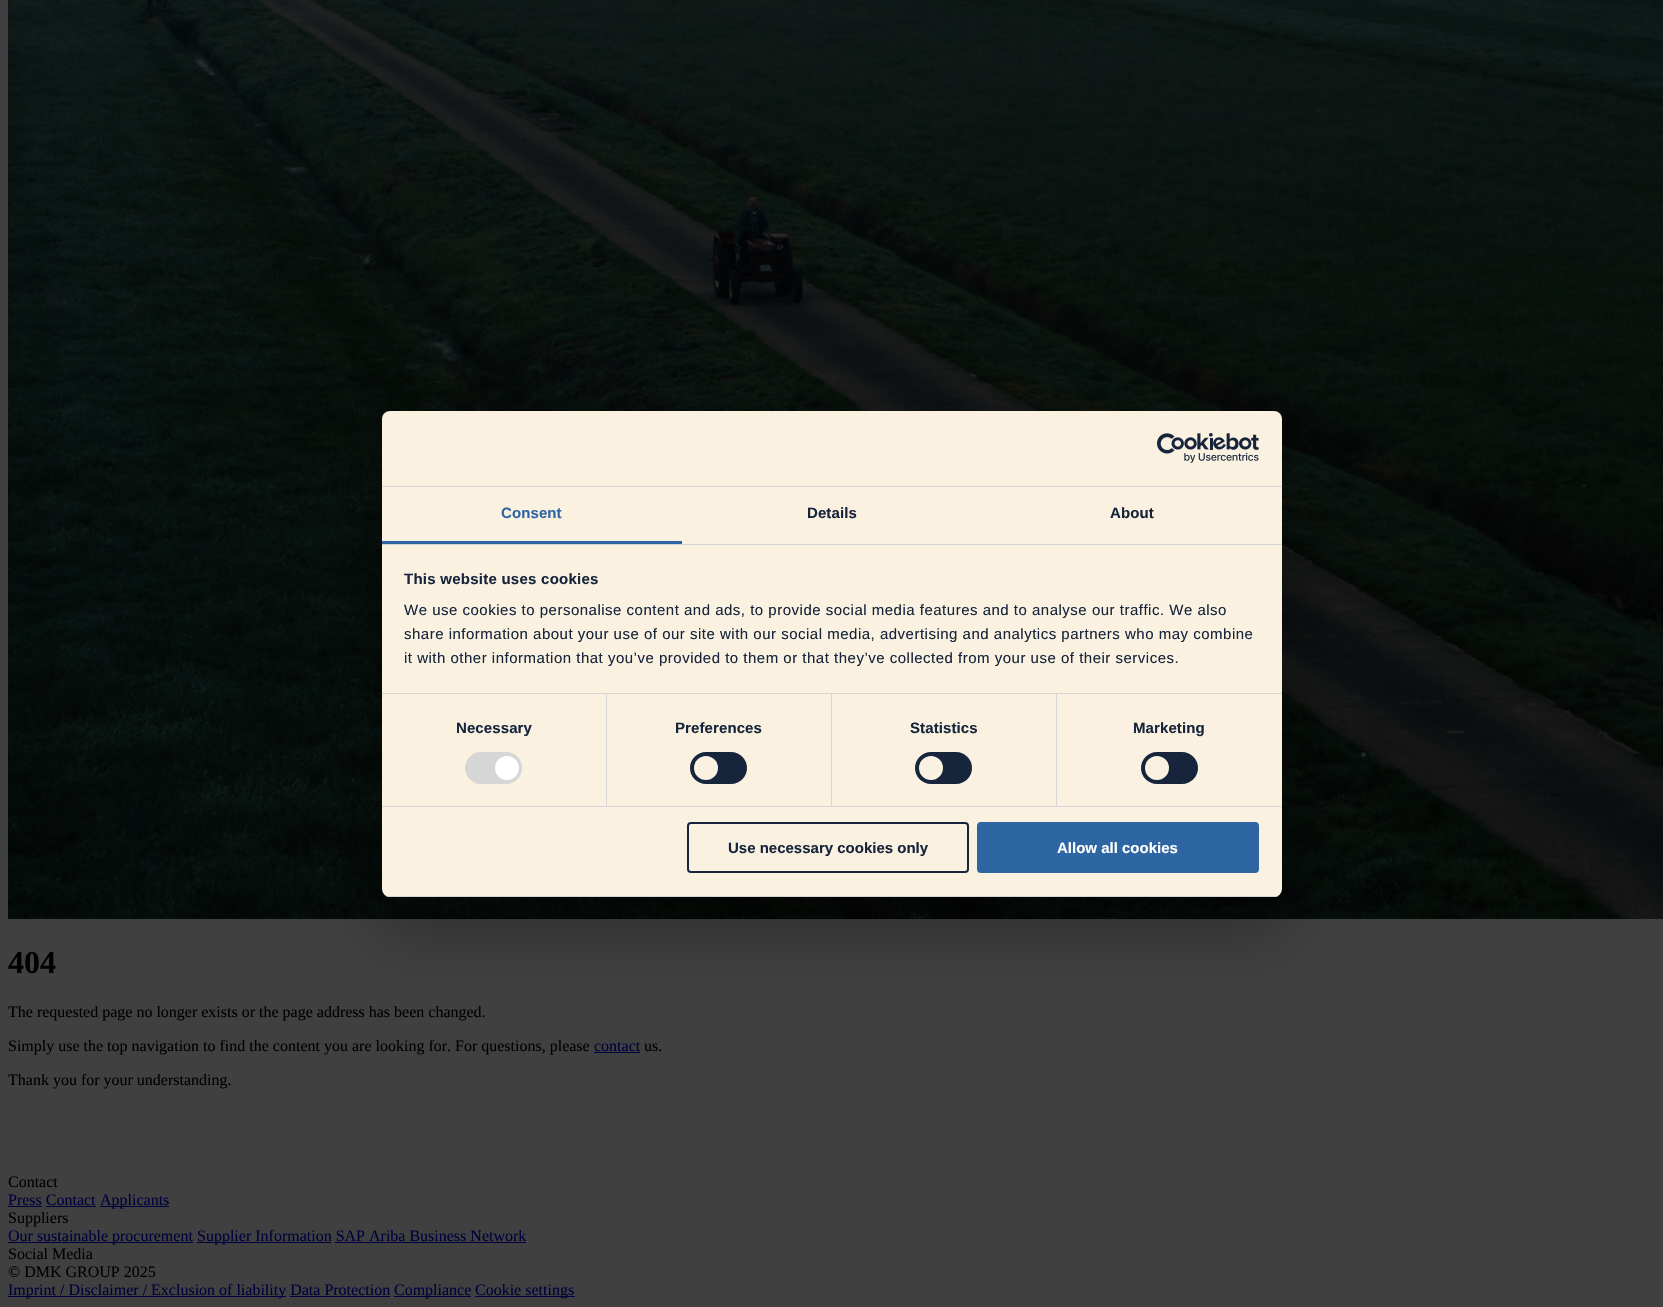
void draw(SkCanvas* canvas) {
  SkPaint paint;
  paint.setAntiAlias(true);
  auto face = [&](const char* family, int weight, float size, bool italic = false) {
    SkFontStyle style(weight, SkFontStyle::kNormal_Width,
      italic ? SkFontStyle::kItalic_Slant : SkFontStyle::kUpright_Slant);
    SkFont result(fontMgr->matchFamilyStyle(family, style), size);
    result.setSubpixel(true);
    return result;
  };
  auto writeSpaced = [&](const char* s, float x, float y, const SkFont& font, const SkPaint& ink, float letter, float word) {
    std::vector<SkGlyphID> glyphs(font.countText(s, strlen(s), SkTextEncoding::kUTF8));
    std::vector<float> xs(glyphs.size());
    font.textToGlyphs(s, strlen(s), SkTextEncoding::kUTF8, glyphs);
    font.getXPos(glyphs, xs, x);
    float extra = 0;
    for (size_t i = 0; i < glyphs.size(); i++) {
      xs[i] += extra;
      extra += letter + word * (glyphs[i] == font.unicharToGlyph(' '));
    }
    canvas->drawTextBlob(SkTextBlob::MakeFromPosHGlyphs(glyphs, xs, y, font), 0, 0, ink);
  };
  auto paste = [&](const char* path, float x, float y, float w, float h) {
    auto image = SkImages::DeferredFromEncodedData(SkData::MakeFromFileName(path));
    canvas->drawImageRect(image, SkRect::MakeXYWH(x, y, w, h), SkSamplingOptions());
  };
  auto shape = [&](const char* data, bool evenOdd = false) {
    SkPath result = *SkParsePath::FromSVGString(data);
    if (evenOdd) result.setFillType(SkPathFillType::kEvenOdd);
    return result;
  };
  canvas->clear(0xff404040);
  paste("img/2.png", 8, 0, 1655, 919);
  paint.setColor(0x4d000000);
  paint.setMaskFilter(SkMaskFilter::MakeBlur(kNormal_SkBlurStyle, 34));
  canvas->drawRoundRect(SkRect::MakeXYWH(382, 443, 900, 486), 8, 8, paint);
  paint.setMaskFilter(nullptr);
  paint.setColor(0xfffaf1e0);
  canvas->drawRoundRect(SkRect::MakeXYWH(382, 411, 900, 486), 8, 8, paint);
  paint.setColor(0xffd6d6d6);
  canvas->drawRect(SkRect::MakeXYWH(382, 486, 900, 1), paint);
  paste("img/1.png", 1157, 433, 102, 30);
  {
    const struct { float x, y, w, h; SkColor color; } items[] = {
      {382, 544, 900, 1, 0xffd6d6d6},
      {382, 541, 300, 3, 0xff2e65a3},
      {382, 693, 900, 1, 0xffd6d6d6},
      {382, 806, 900, 1, 0xffd6d6d6},
      {606, 694, 1, 112, 0xffd6d6d6},
    };
    for (auto [x, y, w, h, color] : items) {
      paint.setColor(color);
      canvas->drawRect(SkRect::MakeXYWH(x, y, w, h), paint);
    }
  }
  canvas->drawRoundRect(SkRect::MakeXYWH(465, 752, 57, 32), 16, 16, paint);
  paint.setColor(0xffffffff);
  canvas->drawCircle(507, 768, 12, paint);
  paint.setColor(0xffd6d6d6);
  canvas->drawRect(SkRect::MakeXYWH(831, 694, 1, 112), paint);
  paint.setColor(0xff16253c);
  canvas->drawRoundRect(SkRect::MakeXYWH(690, 752, 57, 32), 16, 16, paint);
  paint.setColor(0xfffaf1e0);
  canvas->drawCircle(706, 768, 12, paint);
  paint.setColor(0xffd6d6d6);
  canvas->drawRect(SkRect::MakeXYWH(1056, 694, 1, 112), paint);
  paint.setColor(0xff16253c);
  canvas->drawRoundRect(SkRect::MakeXYWH(915, 752, 57, 32), 16, 16, paint);
  paint.setColor(0xfffaf1e0);
  canvas->drawCircle(931, 768, 12, paint);
  paint.setColor(0xff16253c);
  canvas->drawRoundRect(SkRect::MakeXYWH(1141, 752, 57, 32), 16, 16, paint);
  paint.setColor(0xfffaf1e0);
  canvas->drawCircle(1157, 768, 12, paint);
  canvas->save();
  canvas->clipPath(shape("M390 411H1274C1278.5 411 1282 414.5 1282 419V889C1282 893.5 1278.5 897 1274 897H390C385.5 897 382 893.5 382 889V419C382 414.5 385.5 411 390 411Z"), true);
  paint.setColor(0xffd6d6d6);
  canvas->drawRect(SkRect::MakeXYWH(382, 896, 900, 1), paint);
  canvas->restore();
  paint.setStroke(true);
  paint.setStrokeWidth(2);
  paint.setColor(0xff16253c);
  canvas->drawRoundRect(SkRect::MakeXYWH(688, 823, 280, 49), 3, 3, paint);
  paint.setStroke(false);
  paint.setColor(0xff2e65a3);
  canvas->drawRoundRect(SkRect::MakeXYWH(978, 823, 280, 49), 3, 3, paint);
  paint.setStroke(true);
  canvas->drawRoundRect(SkRect::MakeXYWH(978, 823, 280, 49), 3, 3, paint);
  paint.setStroke(false);
  paint.setColor(0xff00003c);
  canvas->drawRect(SkRect::MakeXYWH(594, 1052, 46, 1), paint);
  paste("img/3.png", 8, 1112, 211, 50);
  {
    const struct { float x, y, w, h; SkColor color; } items[] = {
      {8, 1206, 34, 1, 0xff00003c},
      {100, 1206, 69, 1, 0xff00003c},
      {46, 1206, 50, 1, 0xff00003c},
      {8, 1242, 185, 1, 0xff00003c},
      {197, 1242, 134, 1, 0xff00003c},
      {335, 1242, 191, 1, 0xff00003c},
      {8, 1296, 278, 1, 0xff00003c},
      {394, 1296, 77, 1, 0xff00003c},
      {475, 1296, 100, 1, 0xff00003c},
      {290, 1296, 100, 1, 0xff00003c},
    };
    for (auto [x, y, w, h, color] : items) {
      paint.setColor(color);
      canvas->drawRect(SkRect::MakeXYWH(x, y, w, h), paint);
    }
  }
  auto f0 = face("Liberation Sans", 700, 15);
  paint.setColor(0xff2e65a3);
  writeSpaced("Consent", 501, 518, f0, paint, 0.1f, 0);
  paint.setColor(0xff16253c);
  writeSpaced("Details", 807, 518, f0, paint, 0.1f, 0);
  writeSpaced("About", 1110, 518, f0, paint, 0.1f, 0);
  writeSpaced("This website uses cookies", 404, 584, f0, paint, 0.25f, 0);
  auto f1 = face("Liberation Sans", 400, 15);
  {
    const struct { const char* s; float x, y; } items[] = {
      {"We use cookies to personalise content and ads, to provide social media features and to analyse our traffic. We also", 404, 615},
      {"share information about your use of our site with our social media, advertising and analytics partners who may combine", 404, 639},
      {"it with other information that you’ve provided to them or that they’ve collected from your use of their services.", 404, 663},
    };
    for (auto [s, x, y] : items) {
      writeSpaced(s, x, y, f1, paint, 0.5f, 0);
    }
  }
  {
    const struct { const char* s; float x, y; } items[] = {
      {"Necessary", 456, 733},
      {"Preferences", 675, 733},
      {"Statistics", 910, 733},
      {"Marketing", 1133, 733},
    };
    for (auto [s, x, y] : items) {
      writeSpaced(s, x, y, f0, paint, 0.1f, 0);
    }
  }
  canvas->drawString("Use necessary cookies only", 728, 853, f0, paint);
  paint.setColor(0xffffffff);
  canvas->drawString("Allow all cookies", 1057, 853, f0, paint);
  auto f2 = face("Liberation Serif", 700, 32);
  paint.setColor(0xff000000);
  canvas->drawString("404", 8, 973, f2, paint);
  auto f3 = face("Liberation Serif", 400, 16);
  canvas->drawString("The requested page no longer exists or the page address has been changed.", 8, 1017, f3, paint);
  canvas->drawString("Simply use the top navigation to find the content you are looking for. For questions, please", 8, 1051, f3, paint);
  paint.setColor(0xff00003c);
  canvas->drawString("contact", 594, 1051, f3, paint);
  paint.setColor(0xff000000);
  {
    const struct { const char* s; float x, y; } items[] = {
      {"us.", 644, 1051},
      {"Thank you for your understanding.", 8, 1085},
      {"Contact", 8, 1187},
    };
    for (auto [s, x, y] : items) {
      canvas->drawString(s, x, y, f3, paint);
    }
  }
  paint.setColor(0xff00003c);
  canvas->drawString("Press Contact", 8, 1205, f3, paint);
  canvas->drawString("Applicants", 100, 1205, f3, paint);
  paint.setColor(0xff000000);
  canvas->drawString("Suppliers", 8, 1223, f3, paint);
  paint.setColor(0xff00003c);
  canvas->drawString("Our sustainable procurement", 8, 1241, f3, paint);
  canvas->drawString("Supplier Information SAP Ariba Business Network", 197, 1241, f3, paint);
  paint.setColor(0xff000000);
  canvas->drawString("Social Media", 8, 1259, f3, paint);
  canvas->drawString("© DMK GROUP 2025", 8, 1277, f3, paint);
  paint.setColor(0xff00003c);
  {
    const struct { const char* s; float x, y; } items[] = {
      {"Imprint / Disclaimer / Exclusion of liability Data Protection", 8, 1295},
      {"Compliance", 394, 1295},
      {"Cookie settings", 475, 1295},
    };
    for (auto [s, x, y] : items) {
      canvas->drawString(s, x, y, f3, paint);
    }
  }
}
